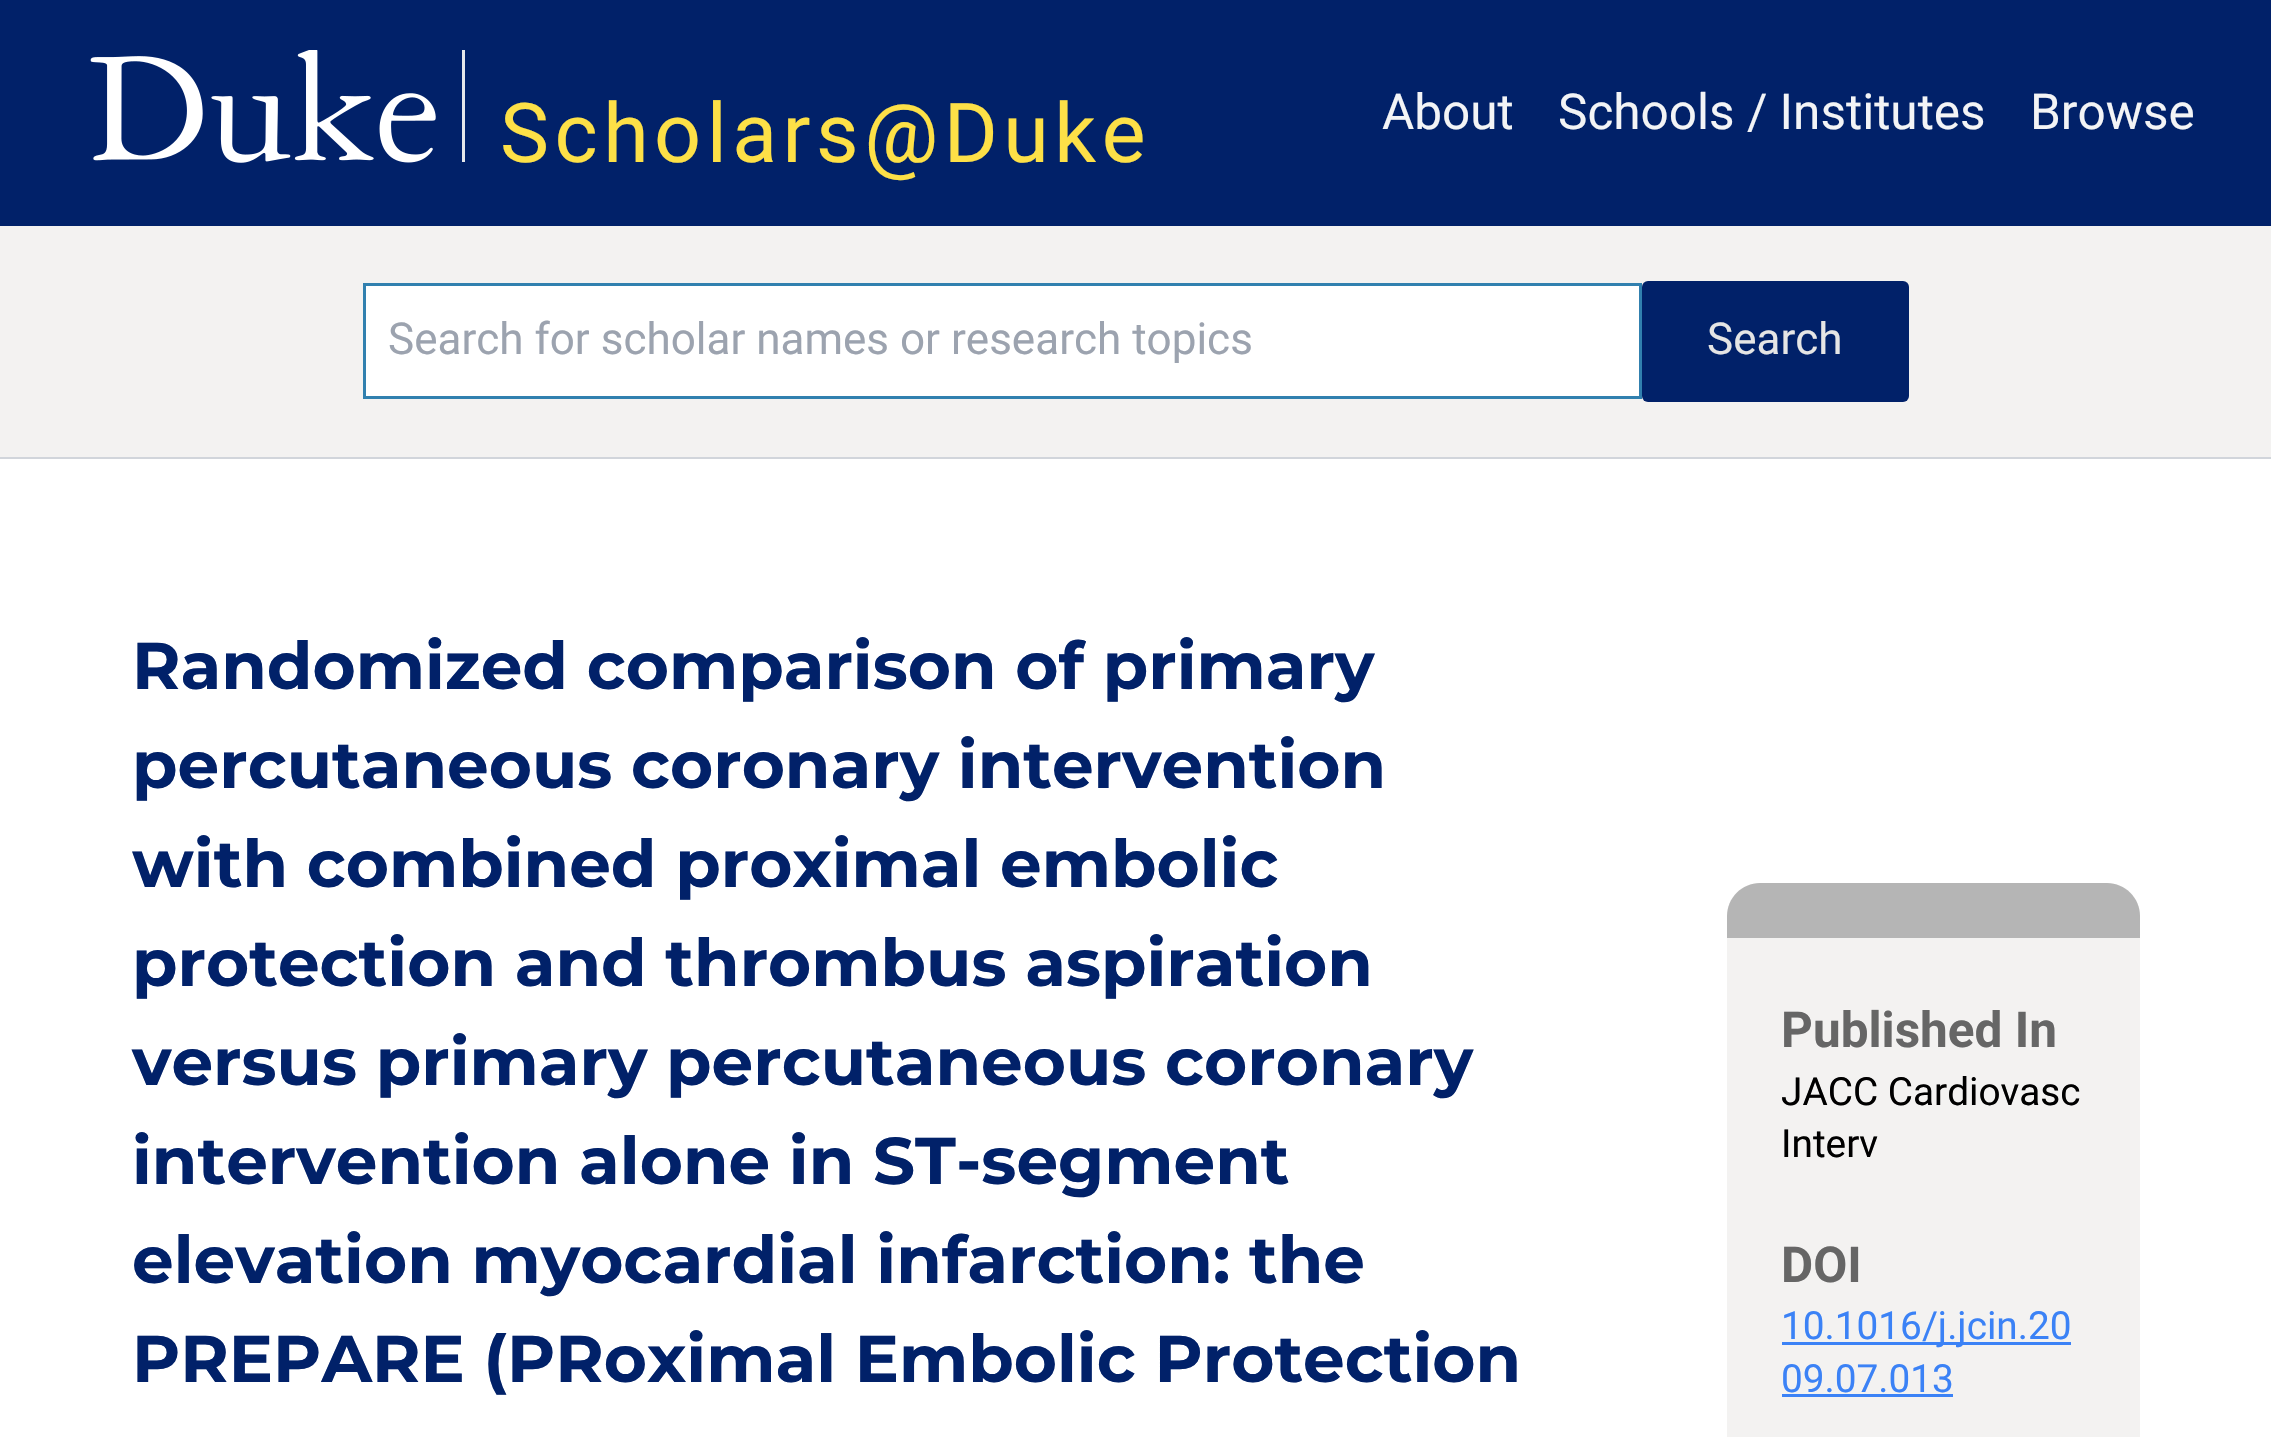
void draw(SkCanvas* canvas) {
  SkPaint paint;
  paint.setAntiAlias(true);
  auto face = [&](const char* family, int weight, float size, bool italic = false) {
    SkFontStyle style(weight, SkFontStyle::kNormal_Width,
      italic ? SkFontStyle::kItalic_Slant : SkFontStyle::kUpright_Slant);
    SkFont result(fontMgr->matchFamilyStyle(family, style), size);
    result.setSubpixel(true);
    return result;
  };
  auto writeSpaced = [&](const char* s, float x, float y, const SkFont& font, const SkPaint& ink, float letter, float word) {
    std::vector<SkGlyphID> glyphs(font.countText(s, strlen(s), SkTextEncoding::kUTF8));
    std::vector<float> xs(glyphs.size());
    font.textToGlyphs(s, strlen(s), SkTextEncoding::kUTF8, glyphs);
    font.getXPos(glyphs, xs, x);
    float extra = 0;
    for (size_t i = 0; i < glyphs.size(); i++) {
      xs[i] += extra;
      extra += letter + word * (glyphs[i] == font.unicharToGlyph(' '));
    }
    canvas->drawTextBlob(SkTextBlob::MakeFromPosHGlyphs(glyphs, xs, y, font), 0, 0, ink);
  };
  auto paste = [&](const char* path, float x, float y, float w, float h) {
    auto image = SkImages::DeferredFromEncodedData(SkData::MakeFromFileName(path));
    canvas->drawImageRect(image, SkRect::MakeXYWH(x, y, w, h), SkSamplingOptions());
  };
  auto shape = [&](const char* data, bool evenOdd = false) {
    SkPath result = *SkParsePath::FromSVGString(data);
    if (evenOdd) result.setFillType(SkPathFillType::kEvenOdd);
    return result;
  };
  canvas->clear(0xffffffff);
  paint.setColor(0xff012169);
  canvas->drawRect(SkRect::MakeXYWH(0, 0, 2271, 226), paint);
  paste("img/1.png", 90, 50, 346, 113);
  {
    const struct { float x, y, w, h; SkColor color; } items[] = {
      {462, 50, 3, 112, 0xffe5e7eb},
      {0, 457, 2271, 2, 0xffd1d5db},
      {0, 226, 2271, 231, 0xfff3f2f1},
    };
    for (auto [x, y, w, h, color] : items) {
      paint.setColor(color);
      canvas->drawRect(SkRect::MakeXYWH(x, y, w, h), paint);
    }
  }
  paint.setColor(0xffffffff);
  canvas->drawRect(SkRect::MakeXYWH(364.5f, 284.5f, 1276, 113), paint);
  paint.setStroke(true);
  paint.setStrokeWidth(3);
  paint.setColor(0xff3180af);
  canvas->drawRect(SkRect::MakeXYWH(364.5f, 284.5f, 1276, 113), paint);
  paint.setStroke(false);
  paint.setColor(0xff012169);
  canvas->drawRoundRect(SkRect::MakeXYWH(1642, 281, 267, 121), 6, 6, paint);
  paint.setColor(0xfff3f2f1);
  canvas->drawRoundRect(SkRect::MakeXYWH(1727, 883, 413, 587), 33, 33, paint);
  paint.setColor(0xffb5b5b5);
  canvas->drawPath(shape("M1760 883H2107C2125 883 2140 898 2140 916V938H1727V916C1727 898 1742 883 1760 883Z"), paint);
  paint.setColor(0xff3b82f6);
  canvas->drawRect(SkRect::MakeXYWH(1782, 1342, 289, 3), paint);
  canvas->drawRect(SkRect::MakeXYWH(1782, 1394, 171, 3), paint);
  auto f0 = face("Roboto", 400, 82.5f);
  paint.setColor(0xfffde047);
  writeSpaced("Scholars@Duke", 500, 162, f0, paint, 5.5f, 0);
  auto f1 = face("Roboto", 400, 49.5f);
  paint.setColor(0xfff3f4f6);
  {
    const struct { const char* s; float x, y; } items[] = {
      {"About", 1382, 129},
      {"Schools / Institutes", 1558, 129},
      {"Browse", 2030, 129},
    };
    for (auto [s, x, y] : items) {
      canvas->drawString(s, x, y, f1, paint);
    }
  }
  auto f2 = face("Roboto", 400, 44);
  paint.setColor(0xff9ca3af);
  canvas->drawString("Search for scholar names or research topics", 388, 354, f2, paint);
  paint.setColor(0xffe5e5e5);
  canvas->drawString("Search", 1707, 354, f2, paint);
  auto f3 = face("Montserrat", 700, 66);
  paint.setColor(0xff012169);
  {
    const struct { const char* s; float x, y; } items[] = {
      {"Randomized comparison of primary", 132, 689},
      {"percutaneous coronary intervention", 132, 788},
      {"with combined proximal embolic", 132, 887},
      {"protection and thrombus aspiration", 132, 986},
      {"versus primary percutaneous coronary", 132, 1085},
      {"intervention alone in ST-segment", 132, 1184},
      {"elevation myocardial infarction: the", 132, 1283},
      {"PREPARE (PRoximal Embolic Protection", 132, 1382},
    };
    for (auto [s, x, y] : items) {
      canvas->drawString(s, x, y, f3, paint);
    }
  }
  auto f4 = face("Roboto", 700, 49.5f);
  paint.setColor(0xff666666);
  canvas->drawString("Published In", 1781, 1047, f4, paint);
  auto f5 = face("Roboto", 400, 38.75f);
  paint.setColor(0xff000000);
  canvas->drawString("JACC Cardiovasc", 1781, 1105, f5, paint);
  canvas->drawString("Interv", 1781, 1157, f5, paint);
  paint.setColor(0xff666666);
  canvas->drawString("DOI", 1781, 1282, f4, paint);
  paint.setColor(0xff3b82f6);
  canvas->drawString("10.1016/j.jcin.20", 1781, 1339, f5, paint);
  canvas->drawString("09.07.013", 1781, 1392, f5, paint);
}
